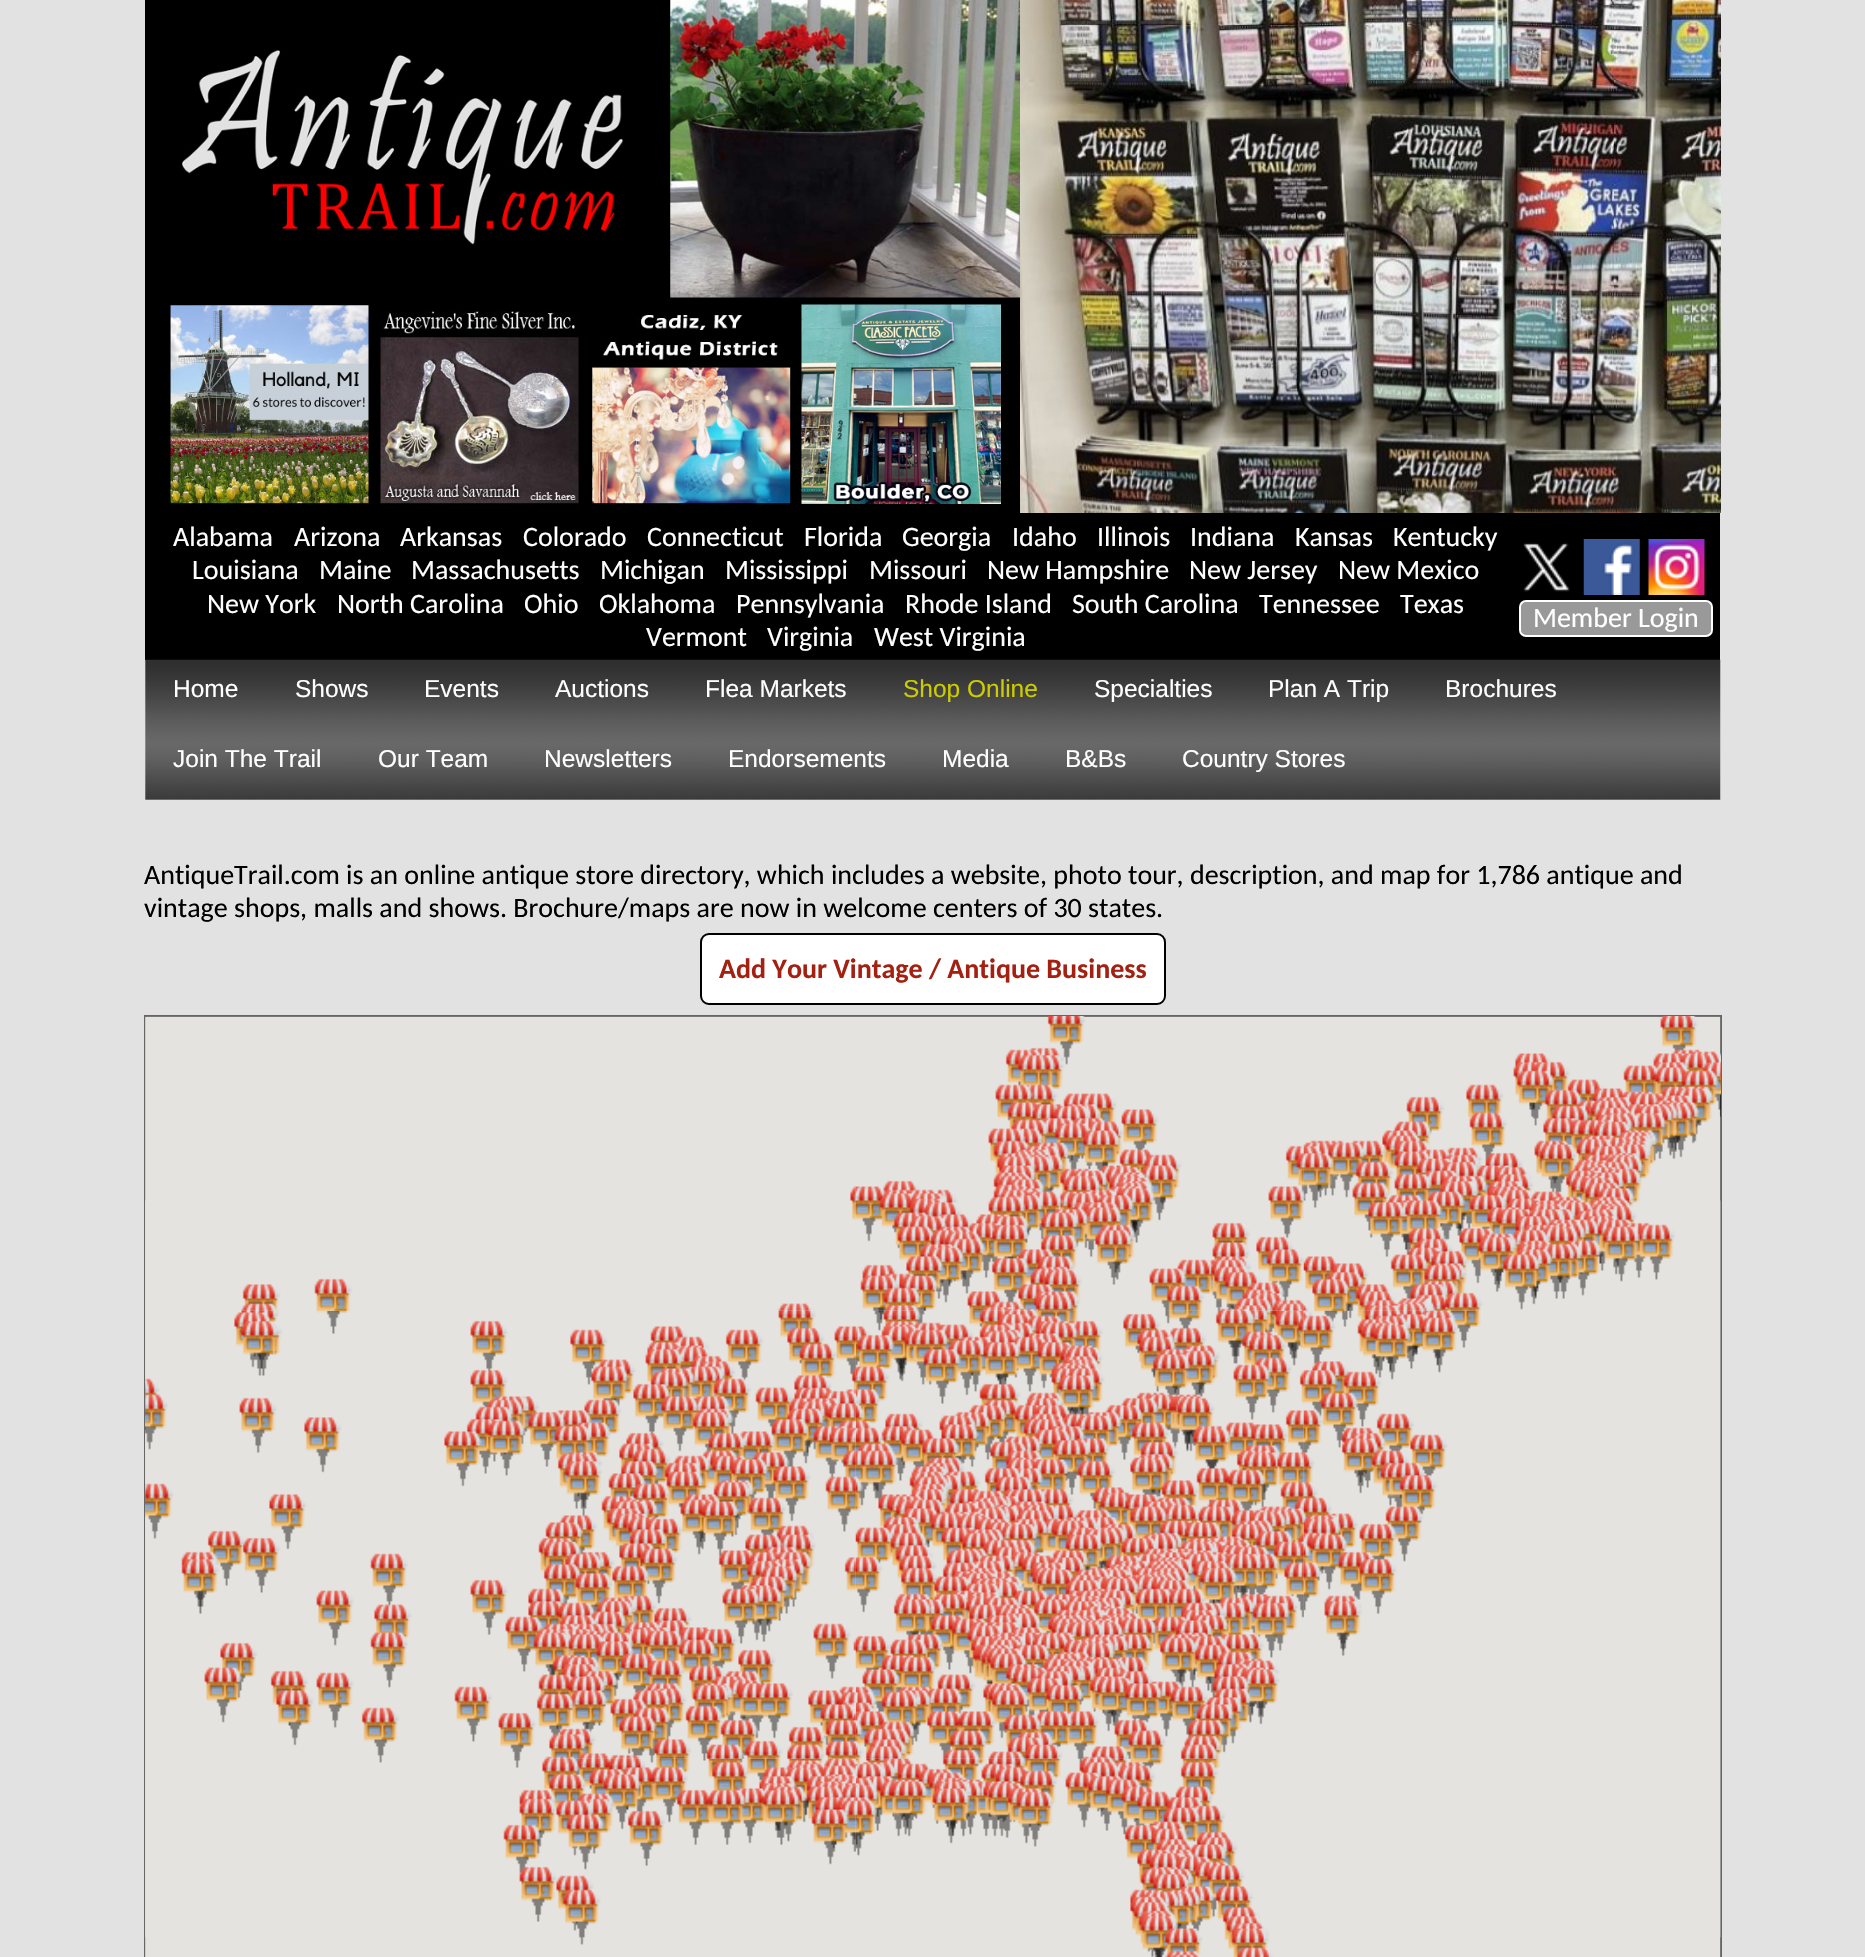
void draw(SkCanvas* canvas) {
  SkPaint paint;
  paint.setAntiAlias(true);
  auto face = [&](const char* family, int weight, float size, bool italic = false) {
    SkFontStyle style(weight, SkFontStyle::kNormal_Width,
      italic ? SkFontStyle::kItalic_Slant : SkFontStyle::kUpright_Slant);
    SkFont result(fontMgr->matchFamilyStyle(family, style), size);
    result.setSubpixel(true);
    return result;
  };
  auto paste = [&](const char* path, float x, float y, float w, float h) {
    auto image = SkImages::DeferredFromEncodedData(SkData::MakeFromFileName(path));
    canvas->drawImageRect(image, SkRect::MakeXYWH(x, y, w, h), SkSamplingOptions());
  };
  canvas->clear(0xffe2e2e2);
  paint.setColor(0xff000000);
  canvas->drawRect(SkRect::MakeXYWH(145, 0, 875, 513), paint);
  paste("img/1.png", 182, 50, 441, 195);
  paste("img/2.png", 670, 0, 350, 298);
  paste("img/3.png", 1020, 0, 701, 513);
  paste("img/4.png", 170, 304, 199, 200);
  paste("img/5.png", 380, 311, 199, 193);
  paste("img/6.png", 591, 314, 200, 190);
  paste("img/7.png", 801, 304, 200, 200);
  canvas->drawRect(SkRect::MakeXYWH(145, 513, 1575, 147), paint);
  paste("img/8.png", 1523, 542, 47, 50);
  paste("img/9.png", 1583, 539, 57, 56);
  paste("img/10.png", 1648, 539, 57, 56);
  paint.setColor(0xff999999);
  canvas->drawRoundRect(SkRect::MakeXYWH(1520, 601, 192, 35), 6, 6, paint);
  paint.setStroke(true);
  paint.setStrokeWidth(2);
  paint.setColor(0xffffffff);
  canvas->drawRoundRect(SkRect::MakeXYWH(1520, 601, 192, 35), 6, 6, paint);
  paint.setStroke(false);
  canvas->drawRect(SkRect::MakeXYWH(145, 660, 1575, 140), paint);
  paste("img/11.png", 145, 659, 1576, 141);
  canvas->drawRoundRect(SkRect::MakeXYWH(701, 934, 464, 70), 8, 8, paint);
  paint.setStroke(true);
  paint.setColor(0xff000000);
  canvas->drawRoundRect(SkRect::MakeXYWH(701, 934, 464, 70), 8, 8, paint);
  paint.setColor(0xff666666);
  canvas->drawRect(SkRect::MakeXYWH(145, 1016, 1576, 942), paint);
  paste("img/12.png", 145, 1016, 1576, 941);
  paste("img/13.png", 145, 1016, 1576, 941);
  auto f0 = face("Carlito", 400, 28);
  paint.setStroke(false);
  paint.setColor(0xffffffff);
  {
    const struct { const char* s; float x, y; } items[] = {
      {"Alabama", 173, 546},
      {"Arizona", 294, 546},
      {"Arkansas", 400, 546},
      {"Colorado", 523, 546},
      {"Connecticut", 647, 546},
      {"Florida", 804, 546},
      {"Georgia", 902, 546},
      {"Idaho", 1012, 546},
      {"Illinois", 1097, 546},
      {"Indiana", 1190, 546},
      {"Kansas", 1295, 546},
      {"Kentucky", 1393, 546},
      {"Louisiana", 192, 579},
      {"Maine", 319, 579},
      {"Massachusetts", 411, 579},
      {"Michigan", 600, 579},
      {"Mississippi", 725, 579},
      {"Missouri", 869, 579},
      {"New Hampshire", 987, 579},
      {"New Jersey", 1189, 579},
      {"New Mexico", 1338, 579},
      {"New York", 207, 613},
      {"North Carolina", 337, 613},
      {"Ohio", 524, 613},
      {"Oklahoma", 599, 613},
      {"Pennsylvania", 736, 613},
      {"Rhode Island", 905, 613},
      {"South Carolina", 1072, 613},
      {"Tennessee", 1259, 613},
      {"Texas", 1400, 613},
      {"Vermont", 646, 646},
      {"Virginia", 767, 646},
      {"West Virginia", 874, 646},
      {"Member Login", 1533, 627},
    };
    for (auto [s, x, y] : items) {
      canvas->drawString(s, x, y, f0, paint);
    }
  }
  auto f1 = face("Liberation Sans", 400, 24.5f);
  {
    const struct { const char* s; float x, y; } items[] = {
      {"Home", 173, 697},
      {"Shows", 295, 697},
      {"Events", 424, 697},
      {"Auctions", 555, 697},
      {"Flea Markets", 705, 697},
    };
    for (auto [s, x, y] : items) {
      canvas->drawString(s, x, y, f1, paint);
    }
  }
  paint.setColor(0xffcccc00);
  canvas->drawString("Shop Online", 903, 697, f1, paint);
  paint.setColor(0xffffffff);
  {
    const struct { const char* s; float x, y; } items[] = {
      {"Specialties", 1094, 697},
      {"Plan A Trip", 1268, 697},
      {"Brochures", 1445, 697},
      {"Join The Trail", 173, 767},
      {"Our Team", 378, 767},
      {"Newsletters", 544, 767},
      {"Endorsements", 728, 767},
      {"Media", 942, 767},
      {"B&Bs", 1065, 767},
      {"Country Stores", 1182, 767},
    };
    for (auto [s, x, y] : items) {
      canvas->drawString(s, x, y, f1, paint);
    }
  }
  paint.setColor(0xff000000);
  canvas->drawString("AntiqueTrail.com is an online antique store directory, which includes a website, photo tour, description, and map for 1,786 antique and", 144, 884, f0, paint);
  canvas->drawString("vintage shops, malls and shows. Brochure/maps are now in welcome centers of 30 states.", 144, 917, f0, paint);
  auto f2 = face("Carlito", 700, 28);
  paint.setColor(0xffa42011);
  canvas->drawString("Add Your Vintage / Antique Business", 719, 978, f2, paint);
}
